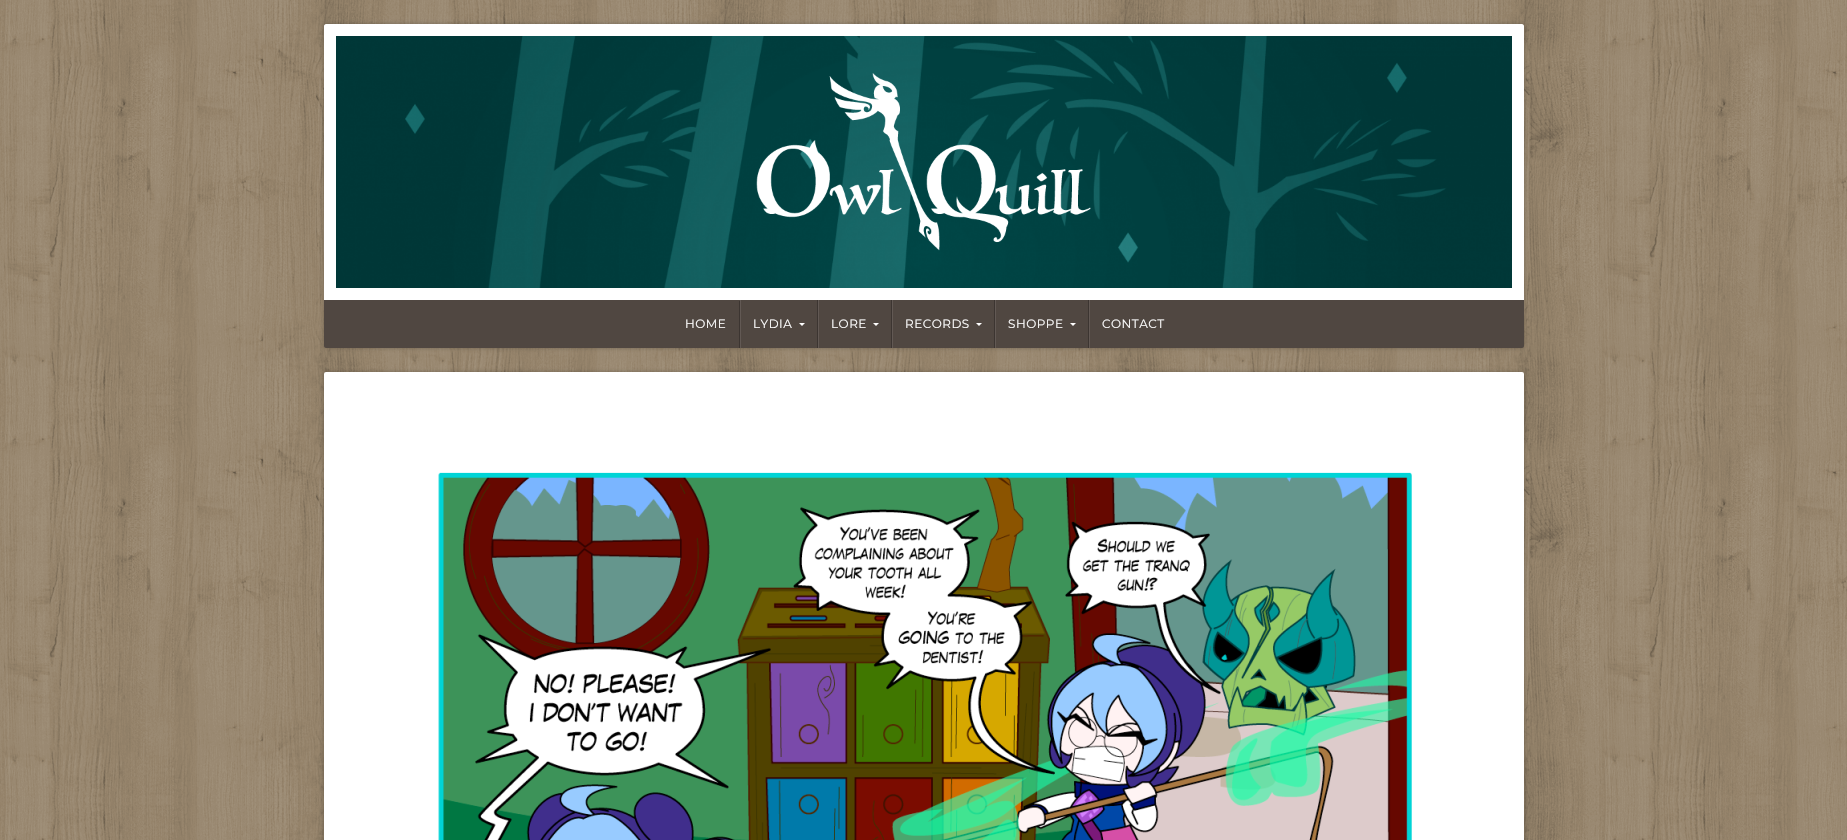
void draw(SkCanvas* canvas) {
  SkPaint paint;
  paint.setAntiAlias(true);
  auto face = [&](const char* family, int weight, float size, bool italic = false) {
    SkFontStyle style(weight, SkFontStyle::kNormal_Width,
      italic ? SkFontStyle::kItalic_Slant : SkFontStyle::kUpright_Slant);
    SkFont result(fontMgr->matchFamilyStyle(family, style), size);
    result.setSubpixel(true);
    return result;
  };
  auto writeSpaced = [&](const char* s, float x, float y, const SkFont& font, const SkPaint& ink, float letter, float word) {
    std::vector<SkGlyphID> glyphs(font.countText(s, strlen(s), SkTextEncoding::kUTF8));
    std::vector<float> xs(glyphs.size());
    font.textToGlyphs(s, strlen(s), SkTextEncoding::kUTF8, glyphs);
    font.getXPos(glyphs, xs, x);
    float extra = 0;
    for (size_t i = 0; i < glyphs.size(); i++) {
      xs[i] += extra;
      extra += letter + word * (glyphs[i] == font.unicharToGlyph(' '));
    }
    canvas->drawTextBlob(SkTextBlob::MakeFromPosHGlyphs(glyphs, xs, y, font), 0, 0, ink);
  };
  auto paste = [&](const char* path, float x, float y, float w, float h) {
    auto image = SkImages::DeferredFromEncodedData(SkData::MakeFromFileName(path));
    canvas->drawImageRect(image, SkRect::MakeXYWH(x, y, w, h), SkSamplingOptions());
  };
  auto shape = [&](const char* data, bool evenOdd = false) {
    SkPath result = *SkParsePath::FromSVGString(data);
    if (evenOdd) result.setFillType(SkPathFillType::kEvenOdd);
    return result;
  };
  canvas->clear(0xffffffff);
  paste("img/1.png", 0, 0, 1847, 840);
  paint.setColor(0x3d000000);
  paint.setMaskFilter(SkMaskFilter::MakeBlur(kNormal_SkBlurStyle, 2));
  canvas->drawRoundRect(SkRect::MakeXYWH(324, 24, 1200, 324), 2, 2, paint);
  paint.setMaskFilter(nullptr);
  paint.setColor(0xffffffff);
  canvas->drawPath(shape("M326 24H1522C1523 24 1524 25 1524 26V300H324V26C324 25 325 24 326 24Z"), paint);
  paste("img/2.png", 336, 36, 1176, 252);
  paste("img/3.png", 756, 73, 335, 178);
  paint.setColor(0xff504741);
  canvas->drawPath(shape("M324 300H1524V346C1524 347 1523 348 1522 348H326C325 348 324 347 324 346Z"), paint);
  {
    const struct { float x, y, w, h; SkColor color; } items[] = {
      {739, 301, 1, 47, 0xff3c3531},
      {817, 300, 1, 48, 0xff3c3531},
      {740, 300, 1, 48, 0xff625954},
    };
    for (auto [x, y, w, h, color] : items) {
      paint.setColor(color);
      canvas->drawRect(SkRect::MakeXYWH(x, y, w, h), paint);
    }
  }
  paint.setColor(0xffffffff);
  canvas->drawPath(shape("M799 323H805L802 326Z"), paint);
  paint.setColor(0xff3c3531);
  canvas->drawRect(SkRect::MakeXYWH(891, 300, 1, 48), paint);
  paint.setColor(0xff625954);
  canvas->drawRect(SkRect::MakeXYWH(818, 300, 1, 48), paint);
  paint.setColor(0xffffffff);
  canvas->drawPath(shape("M873 323H879L876 326Z"), paint);
  paint.setColor(0xff3c3531);
  canvas->drawRect(SkRect::MakeXYWH(994, 300, 1, 48), paint);
  paint.setColor(0xff625954);
  canvas->drawRect(SkRect::MakeXYWH(892, 300, 1, 48), paint);
  paint.setColor(0xffffffff);
  canvas->drawPath(shape("M976 323H982L979 326Z"), paint);
  paint.setColor(0xff3c3531);
  canvas->drawRect(SkRect::MakeXYWH(1088, 300, 1, 48), paint);
  paint.setColor(0xff625954);
  canvas->drawRect(SkRect::MakeXYWH(995, 300, 1, 48), paint);
  paint.setColor(0xffffffff);
  canvas->drawPath(shape("M1070 323H1076L1073 326Z"), paint);
  paint.setColor(0xff625954);
  canvas->drawRect(SkRect::MakeXYWH(1089, 300, 1, 48), paint);
  paint.setColor(0x3d000000);
  paint.setMaskFilter(SkMaskFilter::MakeBlur(kNormal_SkBlurStyle, 2));
  canvas->drawRoundRect(SkRect::MakeXYWH(324, 372, 1200, 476), 2, 2, paint);
  paint.setMaskFilter(nullptr);
  paint.setColor(0xffffffff);
  canvas->drawRoundRect(SkRect::MakeXYWH(324, 372, 1200, 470), 2, 2, paint);
  paste("img/4.png", 438, 472, 974, 368);
  auto f0 = face("Montserrat", 400, 12);
  {
    const struct { const char* s; float x, y; } items[] = {
      {"HOME", 685, 328},
      {"LYDIA", 753, 328},
      {"LORE", 831, 328},
      {"RECORDS", 905, 328},
      {"SHOPPE", 1008, 328},
      {"CONTACT", 1102, 328},
    };
    for (auto [s, x, y] : items) {
      writeSpaced(s, x, y, f0, paint, 0.5f, 0);
    }
  }
}
